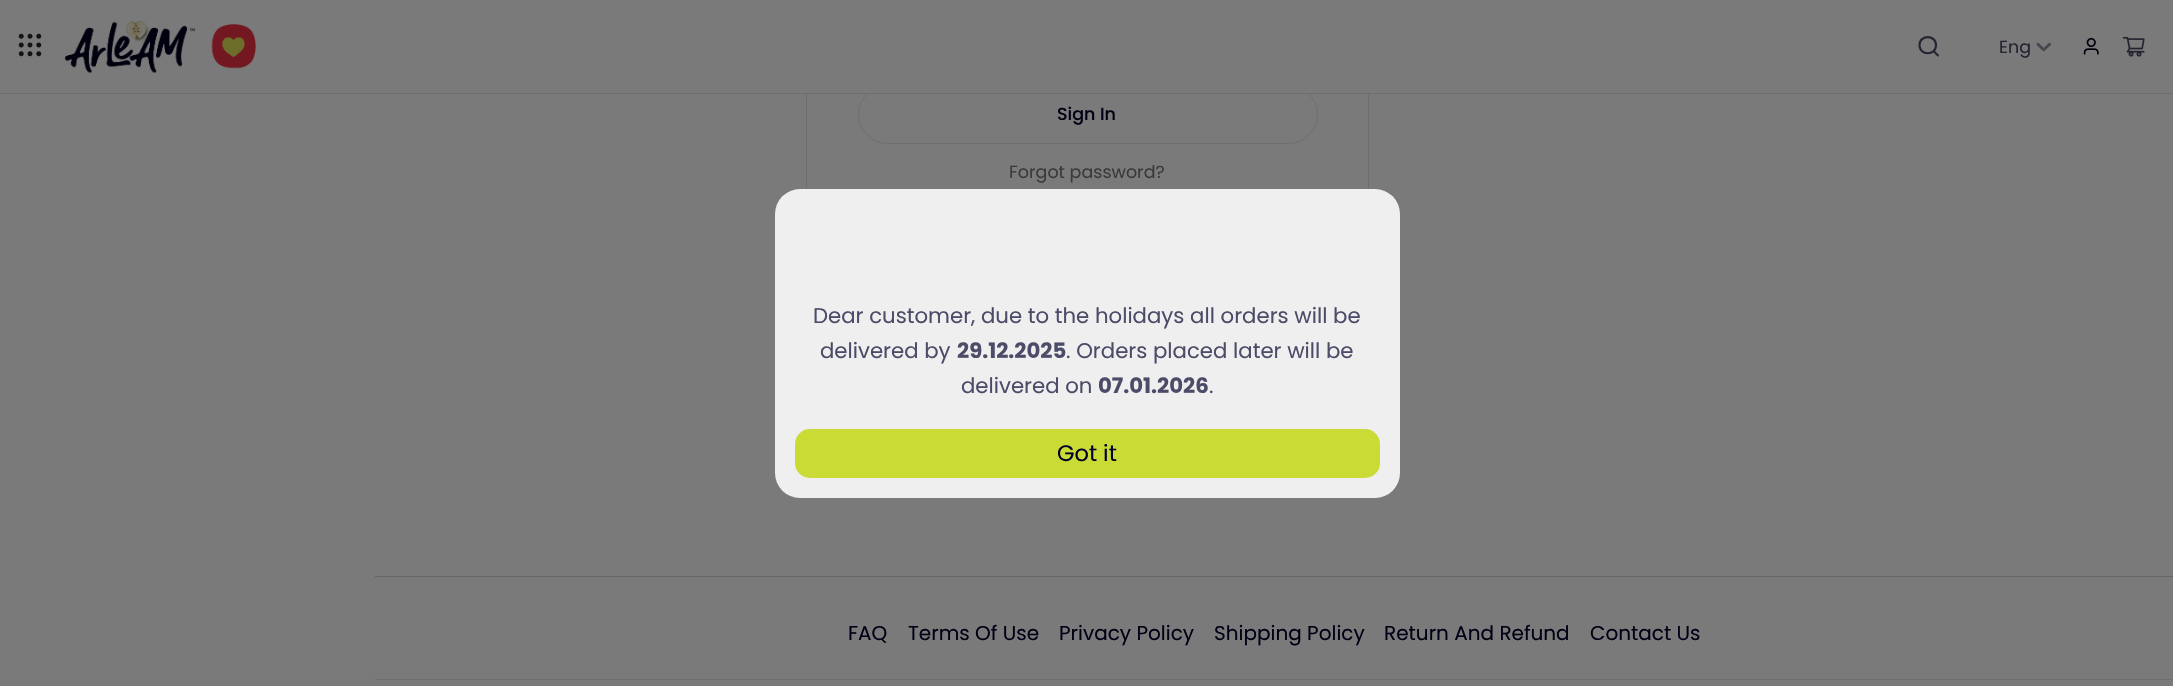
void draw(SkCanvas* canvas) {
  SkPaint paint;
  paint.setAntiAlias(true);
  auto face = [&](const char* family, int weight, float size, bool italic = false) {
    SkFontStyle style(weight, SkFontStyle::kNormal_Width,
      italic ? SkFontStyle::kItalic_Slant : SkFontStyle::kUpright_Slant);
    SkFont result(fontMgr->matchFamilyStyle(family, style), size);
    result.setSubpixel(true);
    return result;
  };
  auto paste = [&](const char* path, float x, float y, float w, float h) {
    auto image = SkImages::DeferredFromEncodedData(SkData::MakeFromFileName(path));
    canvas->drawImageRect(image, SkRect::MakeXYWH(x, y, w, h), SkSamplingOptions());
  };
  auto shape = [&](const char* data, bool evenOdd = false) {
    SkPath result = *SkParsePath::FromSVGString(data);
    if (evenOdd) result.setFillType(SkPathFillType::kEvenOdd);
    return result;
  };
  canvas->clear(0xff7a7a7a);
  paint.setStroke(true);
  paint.setStrokeWidth(1);
  paint.setColor(0xff6e6e70);
  canvas->drawRect(SkRect::MakeXYWH(806.5f, 34.5f, 562, 300), paint);
  canvas->drawRoundRect(SkRect::MakeXYWH(858.5f, 85.5f, 459, 58), 29, 29, paint);
  paint.setStroke(false);
  paint.setColor(0xff7a7a7a);
  canvas->drawRect(SkRect::MakeXYWH(806, 34, 563, 59), paint);
  paint.setColor(0xff6e6e70);
  canvas->drawRect(SkRect::MakeXYWH(0, 93, 2173, 1), paint);
  paste("img/1.png", 18, 33, 24, 24);
  paste("img/2.png", 65, 20, 130, 53);
  paste("img/3.png", 211, 24, 45, 45);
  paint.setStroke(true);
  paint.setStrokeWidth(2.1f);
  paint.setStrokeCap(SkPaint::kRound_Cap);
  paint.setStrokeJoin(SkPaint::kRound_Join);
  paint.setColor(0xff242432);
  canvas->drawPath(shape("M1938 55.5L1933.5 51M1936 45C1936 56 1919.5 56 1919.5 45C1919.5 34.5 1936 34.5 1936 45Z"), paint);
  paste("img/4.png", 2036, 42, 15, 10);
  paste("img/5.png", 2083, 37, 16, 18);
  paste("img/6.png", 2122, 36, 23, 21);
  paint.setStroke(false);
  paint.setColor(0xffefefef);
  canvas->drawRoundRect(SkRect::MakeXYWH(775, 189, 625, 309), 25, 25, paint);
  paint.setColor(0xffcadb36);
  canvas->drawRoundRect(SkRect::MakeXYWH(795, 429, 585, 49), 15, 15, paint);
  paint.setColor(0xff646569);
  canvas->drawRect(SkRect::MakeXYWH(375, 576, 1798, 1), paint);
  paint.setColor(0xff6e6e70);
  canvas->drawRect(SkRect::MakeXYWH(375, 679, 1798, 1), paint);
  auto f0 = face("Poppins", 400, 17.5f);
  paint.setColor(0xff242432);
  canvas->drawString("Eng", 1999, 53, f0, paint);
  auto f1 = face("Poppins", 500, 17.5f);
  paint.setColor(0xff000014);
  canvas->drawString("Sign In", 1057, 120, f1, paint);
  paint.setColor(0xff3a3a3a);
  canvas->drawString("Forgot password?", 1009, 178, f0, paint);
  auto f2 = face("Poppins", 400, 21.25f);
  paint.setColor(0xff4c4c69);
  canvas->drawString("Dear customer, due to the holidays all orders will be", 813, 323, f2, paint);
  canvas->drawString("delivered by", 820, 358, f2, paint);
  auto f3 = face("Poppins", 700, 21.25f);
  canvas->drawString("29.12.2025", 957, 358, f3, paint);
  canvas->drawString(". Orders placed later will be", 1066, 358, f2, paint);
  canvas->drawString("delivered on", 961, 393, f2, paint);
  canvas->drawString("07.01.2026", 1098, 393, f3, paint);
  canvas->drawString(".", 1209, 393, f2, paint);
  auto f4 = face("Poppins", 400, 22.5f);
  paint.setColor(0xff000029);
  canvas->drawString("Got it", 1057, 461, f4, paint);
  auto f5 = face("Poppins", 400, 20);
  paint.setColor(0xff000014);
  {
    const struct { const char* s; float x, y; } items[] = {
      {"FAQ", 848, 640},
      {"Terms Of Use", 908, 640},
      {"Privacy Policy", 1059, 640},
      {"Shipping Policy", 1214, 640},
      {"Return And Refund", 1384, 640},
      {"Contact Us", 1590, 640},
    };
    for (auto [s, x, y] : items) {
      canvas->drawString(s, x, y, f5, paint);
    }
  }
}
